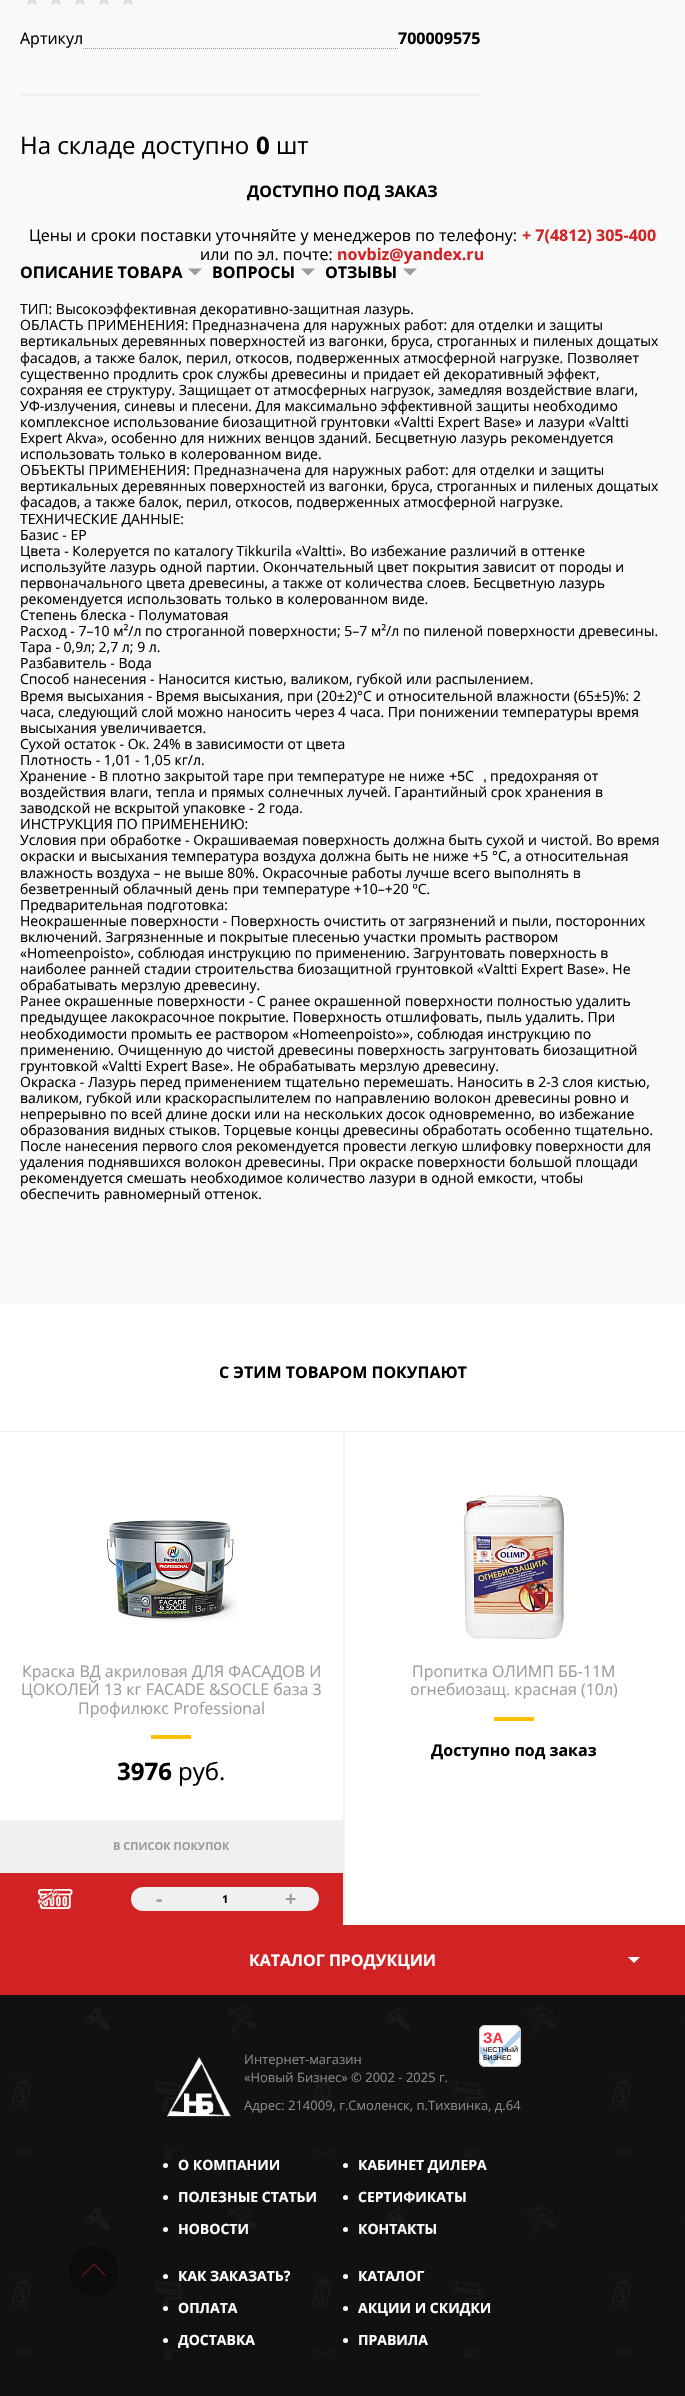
void draw(SkCanvas* canvas) {
  SkPaint paint;
  paint.setAntiAlias(true);
  auto face = [&](const char* family, int weight, float size, bool italic = false) {
    SkFontStyle style(weight, SkFontStyle::kNormal_Width,
      italic ? SkFontStyle::kItalic_Slant : SkFontStyle::kUpright_Slant);
    SkFont result(fontMgr->matchFamilyStyle(family, style), size);
    result.setSubpixel(true);
    return result;
  };
  auto paste = [&](const char* path, float x, float y, float w, float h) {
    auto image = SkImages::DeferredFromEncodedData(SkData::MakeFromFileName(path));
    canvas->drawImageRect(image, SkRect::MakeXYWH(x, y, w, h), SkSamplingOptions());
  };
  auto shape = [&](const char* data, bool evenOdd = false) {
    SkPath result = *SkParsePath::FromSVGString(data);
    if (evenOdd) result.setFillType(SkPathFillType::kEvenOdd);
    return result;
  };
  canvas->clear(0xffffffff);
  paint.setColor(0xfff9f9f9);
  canvas->drawRect(SkRect::MakeXYWH(0, 0, 685, 1303), paint);
  paint.setColor(0xfff0f0f0);
  canvas->drawRect(SkRect::MakeXYWH(20, 94, 460, 2), paint);
  paste("img/1.png", 27, 0, 10, 5);
  paste("img/1.png", 51, 0, 10, 5);
  paste("img/1.png", 75, 0, 10, 5);
  paste("img/1.png", 99, 0, 10, 5);
  paste("img/1.png", 123, 0, 10, 5);
  paste("img/2.png", 83, 48, 259, 1);
  paste("img/3.png", 343, 48, 55, 1);
  paint.setColor(0xff9c9c9c);
  canvas->drawPath(shape("M188 268.5H202L195 275.5Z"), paint);
  canvas->drawPath(shape("M301 268.5H315L308 275.5Z"), paint);
  canvas->drawPath(shape("M403 268.5H417L410 275.5Z"), paint);
  paint.setColor(0xfff0f0f0);
  canvas->drawPath(shape("M0 1431V1432H343V1925H0V1926H345V1431Z"), paint);
  paste("img/4.png", 105, 1520, 132, 102);
  {
    const struct { float x, y, w, h; SkColor color; } items[] = {
      {151, 1735, 40, 4, 0xffffc000},
      {0, 1820, 343, 53, 0xfff0f0f0},
      {0, 1873, 343, 52, 0xffd12324},
    };
    for (auto [x, y, w, h, color] : items) {
      paint.setColor(color);
      canvas->drawRect(SkRect::MakeXYWH(x, y, w, h), paint);
    }
  }
  paste("img/5.png", 38, 1889, 35, 20);
  paint.setColor(0xfff0f0f0);
  canvas->drawRoundRect(SkRect::MakeXYWH(131, 1887, 188, 24), 12, 12, paint);
  canvas->drawPath(shape("M343 1431V1432H685V1925H343V1926H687V1431Z"), paint);
  paste("img/6.png", 463, 1492, 104, 147);
  paint.setColor(0xffffc000);
  canvas->drawRect(SkRect::MakeXYWH(494, 1717, 40, 4), paint);
  paint.setColor(0xffd12324);
  canvas->drawRect(SkRect::MakeXYWH(0, 1925, 685, 70), paint);
  paint.setColor(0xffffffff);
  canvas->drawPath(shape("M628 1957H640L634 1963Z"), paint);
  paste("img/7.png", 0, 1995, 685, 401);
  paste("img/8.png", 69, 2246, 50, 50);
  canvas->drawRoundRect(SkRect::MakeXYWH(479, 2025, 42, 42), 6, 6, paint);
  paste("img/9.png", 480, 2028, 41, 37);
  paint.setStroke(true);
  paint.setStrokeWidth(1);
  paint.setColor(0xffcacaca);
  canvas->drawRoundRect(SkRect::MakeXYWH(479.5f, 2025.5f, 41, 41), 5.5f, 5.5f, paint);
  paste("img/10.png", 167, 2057, 64, 60);
  paint.setStroke(false);
  paint.setColor(0xffffffff);
  canvas->drawCircle(165.5f, 2165.5f, 2.5f, paint);
  canvas->drawCircle(345.5f, 2165.5f, 2.5f, paint);
  canvas->drawCircle(165.5f, 2197.5f, 2.5f, paint);
  canvas->drawCircle(345.5f, 2197.5f, 2.5f, paint);
  canvas->drawCircle(165.5f, 2229.5f, 2.5f, paint);
  canvas->drawCircle(345.5f, 2229.5f, 2.5f, paint);
  canvas->drawCircle(165.5f, 2276.5f, 2.5f, paint);
  canvas->drawCircle(345.5f, 2276.5f, 2.5f, paint);
  canvas->drawCircle(165.5f, 2308.5f, 2.5f, paint);
  canvas->drawCircle(345.5f, 2308.5f, 2.5f, paint);
  canvas->drawCircle(165.5f, 2340.5f, 2.5f, paint);
  canvas->drawCircle(345.5f, 2340.5f, 2.5f, paint);
  auto f0 = face("Open Sans", 400, 16);
  paint.setColor(0xff000000);
  canvas->drawString("Артикул", 20, 44, f0, paint);
  auto f1 = face("Open Sans", 700, 16);
  canvas->drawString("700009575", 398, 44, f1, paint);
  auto f2 = face("Open Sans", 400, 24);
  canvas->drawString("На складе доступно", 20, 154, f2, paint);
  auto f3 = face("Open Sans", 700, 24);
  canvas->drawString("0", 256, 154, f3, paint);
  canvas->drawString("шт", 276, 154, f2, paint);
  canvas->drawString("ДОСТУПНО ПОД ЗАКАЗ", 247, 197, f1, paint);
  canvas->drawString("Цены и сроки поставки уточняйте у менеджеров по телефону:", 29, 241, f0, paint);
  paint.setColor(0xffd12324);
  canvas->drawString("+ 7(4812) 305-400", 522, 241, f1, paint);
  paint.setColor(0xff000000);
  canvas->drawString("или по эл. почте:", 200, 260, f0, paint);
  paint.setColor(0xffd12324);
  canvas->drawString("novbiz@yandex.ru", 337, 260, f1, paint);
  paint.setColor(0xff000000);
  {
    const struct { const char* s; float x, y; } items[] = {
      {"ОПИСАНИЕ ТОВАРА", 20, 278},
      {"ВОПРОСЫ", 212, 278},
      {"ОТЗЫВЫ", 325, 278},
    };
    for (auto [s, x, y] : items) {
      canvas->drawString(s, x, y, f1, paint);
    }
  }
  auto f4 = face("Open Sans", 400, 14);
  {
    const struct { const char* s; float x, y; } items[] = {
      {"ТИП: Высокоэффективная декоративно-защитная лазурь.", 20, 314},
      {"ОБЛАСТЬ ПРИМЕНЕНИЯ: Предназначена для наружных работ: для отделки и защиты", 20, 330},
      {"вертикальных деревянных поверхностей из вагонки, бруса, строганных и пиленых дощатых", 20, 346},
      {"фасадов, а также балок, перил, откосов, подверженных атмосферной нагрузке. Позволяет", 20, 363},
      {"существенно продлить срок службы древесины и придает ей декоративный эффект,", 20, 379},
      {"сохраняя ее структуру. Защищает от атмосферных нагрузок, замедляя воздействие влаги,", 20, 395},
      {"УФ-излучения, синевы и плесени. Для максимально эффективной защиты необходимо", 20, 411},
      {"комплексное использование биозащитной грунтовки «Valtti Expert Base» и лазури «Valtti", 20, 427},
      {"Expert Akva», особенно для нижних венцов зданий. Бесцветную лазурь рекомендуется", 20, 443},
      {"использовать только в колерованном виде.", 20, 459},
      {"ОБЪЕКТЫ ПРИМЕНЕНИЯ: Предназначена для наружных работ: для отделки и защиты", 20, 475},
      {"вертикальных деревянных поверхностей из вагонки, бруса, строганных и пиленых дощатых", 20, 491},
      {"фасадов, а также балок, перил, откосов, подверженных атмосферной нагрузке.", 20, 507},
      {"ТЕХНИЧЕСКИЕ ДАННЫЕ:", 20, 524},
      {"Базис - EP", 20, 540},
      {"Цвета - Колеруется по каталогу Tikkurila «Valtti». Во избежание различий в оттенке", 20, 556},
      {"используйте лазурь одной партии. Окончательный цвет покрытия зависит от породы и", 20, 572},
      {"первоначального цвета древесины, а также от количества слоев. Бесцветную лазурь", 20, 588},
      {"рекомендуется использовать только в колерованном виде.", 20, 604},
      {"Степень блеска - Полуматовая", 20, 620},
      {"Расход - 7–10 м²/л по строганной поверхности; 5–7 м²/л по пиленой поверхности древесины.", 20, 636},
      {"Тара - 0,9л; 2,7 л; 9 л.", 20, 652},
      {"Разбавитель - Вода", 20, 668},
      {"Способ нанесения - Наносится кистью, валиком, губкой или распылением.", 20, 684},
      {"Время высыхания - Время высыхания, при (20±2)°C и относительной влажности (65±5)%: 2", 20, 701},
      {"часа, следующий слой можно наносить через 4 часа. При понижении температуры время", 20, 717},
      {"высыхания увеличивается.", 20, 733},
      {"Сухой остаток - Ок. 24% в зависимости от цвета", 20, 749},
      {"Плотность - 1,01 - 1,05 кг/л.", 20, 765},
      {"Хранение", 20, 781},
    };
    for (auto [s, x, y] : items) {
      canvas->drawString(s, x, y, f4, paint);
    }
  }
  auto f5 = face("Liberation Sans", 400, 14);
  canvas->drawString("-", 91, 781, f5, paint);
  canvas->drawString("В плотно закрытой таре при температуре не ниже", 99, 781, f4, paint);
  canvas->drawString("+5", 449, 781, f5, paint);
  canvas->drawString("С", 465, 781, f4, paint);
  canvas->drawString("предохраняя от", 490, 781, f4, paint);
  canvas->drawString(",", 483, 781, f5, paint);
  canvas->drawString("воздействия влаги", 20, 797, f4, paint);
  canvas->drawString(",", 148, 797, f5, paint);
  canvas->drawString("тепла и прямых солнечных лучей", 156, 797, f4, paint);
  canvas->drawString(".", 387, 797, f5, paint);
  canvas->drawString("Гарантийный срок хранения в", 394, 797, f4, paint);
  canvas->drawString("заводской не вскрытой упаковке", 20, 813, f4, paint);
  canvas->drawString("- 2", 249, 813, f5, paint);
  canvas->drawString("года", 269, 813, f4, paint);
  canvas->drawString(".", 299, 813, f5, paint);
  {
    const struct { const char* s; float x, y; } items[] = {
      {"ИНСТРУКЦИЯ ПО ПРИМЕНЕНИЮ:", 20, 829},
      {"Условия при обработке - Окрашиваемая поверхность должна быть сухой и чистой. Во время", 20, 845},
      {"окраски и высыхания температура воздуха должна быть не ниже +5 °С, а относительная", 20, 861},
      {"влажность воздуха – не выше 80%. Окрасочные работы лучше всего выполнять в", 20, 878},
      {"безветренный облачный день при температуре +10–+20 ºС.", 20, 894},
      {"Предварительная подготовка:", 20, 910},
      {"Неокрашенные поверхности - Поверхность очистить от загрязнений и пыли, посторонних", 20, 926},
      {"включений. Загрязненные и покрытые плесенью участки промыть раствором", 20, 942},
      {"«Homeenpoisto», соблюдая инструкцию по применению. Загрунтовать поверхность в", 20, 958},
      {"наиболее ранней стадии строительства биозащитной грунтовкой «Valtti Expert Base». Не", 20, 974},
      {"обрабатывать мерзлую древесину.", 20, 990},
      {"Ранее окрашенные поверхности - С ранее окрашенной поверхности полностью удалить", 20, 1006},
      {"предыдущее лакокрасочное покрытие. Поверхность отшлифовать, пыль удалить. При", 20, 1022},
      {"необходимости промыть ее раствором «Homeenpoisto»», соблюдая инструкцию по", 20, 1039},
      {"применению. Очищенную до чистой древесины поверхность загрунтовать биозащитной", 20, 1055},
      {"грунтовкой «Valtti Expert Base». Не обрабатывать мерзлую древесину.", 20, 1071},
      {"Окраска - Лазурь перед применением тщательно перемешать. Наносить в 2-3 слоя кистью,", 20, 1087},
      {"валиком, губкой или краскораспылителем по направлению волокон древесины ровно и", 20, 1103},
      {"непрерывно по всей длине доски или на нескольких досок одновременно, во избежание", 20, 1119},
      {"образования видных стыков. Торцевые концы древесины обработать особенно тщательно.", 20, 1135},
      {"После нанесения первого слоя рекомендуется провести легкую шлифовку поверхности для", 20, 1151},
      {"удаления поднявшихся волокон древесины. При окраске поверхности большой площади", 20, 1167},
      {"рекомендуется смешать необходимое количество лазури в одной емкости, чтобы", 20, 1183},
      {"обеспечить равномерный оттенок.", 20, 1199},
    };
    for (auto [s, x, y] : items) {
      canvas->drawString(s, x, y, f4, paint);
    }
  }
  canvas->drawString("С ЭТИМ ТОВАРОМ ПОКУПАЮТ", 219, 1378, f1, paint);
  paint.setColor(0xff9c9c9c);
  {
    const struct { const char* s; float x, y; } items[] = {
      {"Краска ВД акриловая ДЛЯ ФАСАДОВ И", 22, 1677},
      {"ЦОКОЛЕЙ 13 кг FACADE &SOCLE база 3", 21, 1695},
      {"Профилюкс Professional", 78, 1714},
    };
    for (auto [s, x, y] : items) {
      canvas->drawString(s, x, y, f0, paint);
    }
  }
  paint.setColor(0xff000000);
  canvas->drawString("3976", 117, 1780, f3, paint);
  canvas->drawString("руб.", 178, 1780, f2, paint);
  auto f6 = face("Open Sans", 700, 11);
  paint.setColor(0xff9c9c9c);
  canvas->drawString("В СПИСОК ПОКУПОК", 113, 1850, f6, paint);
  auto f7 = face("Open Sans", 700, 20);
  canvas->drawString("-", 156, 1906, f7, paint);
  paint.setColor(0xff000000);
  canvas->drawString("1", 222, 1903, f6, paint);
  paint.setColor(0xff9c9c9c);
  canvas->drawString("+", 285, 1906, f7, paint);
  canvas->drawString("Пропитка ОЛИМП ББ-11М", 412, 1677, f0, paint);
  canvas->drawString("огнебиозащ. красная (10л)", 410, 1695, f0, paint);
  paint.setColor(0xff000000);
  canvas->drawString("Доступно под заказ", 431, 1756, f1, paint);
  paint.setColor(0xffffffff);
  canvas->drawString("КАТАЛОГ ПРОДУКЦИИ", 249, 1966, f1, paint);
  auto f8 = face("Liberation Sans", 700, 15);
  paint.setColor(0xffff2e40);
  canvas->drawString("ЗА", 483, 2043, f8, paint);
  auto f9 = face("Liberation Sans", 400, 7);
  paint.setColor(0xff000000);
  canvas->drawString("ЧЕСТНЫЙ", 483, 2052, f9, paint);
  canvas->drawString("БИЗНЕС", 483, 2060, f9, paint);
  auto f10 = face("Open Sans", 400, 13);
  paint.setColor(0xff888888);
  {
    const struct { const char* s; float x, y; } items[] = {
      {"Интернет-магазин", 244, 2064},
      {"«Новый Бизнес» © 2002 - 2025 г.", 244, 2082},
      {"Адрес: 214009, г.Смоленск, п.Тихвинка, д.64", 244, 2110},
    };
    for (auto [s, x, y] : items) {
      canvas->drawString(s, x, y, f10, paint);
    }
  }
  auto f11 = face("Open Sans", 700, 14);
  paint.setColor(0xffffffff);
  {
    const struct { const char* s; float x, y; } items[] = {
      {"О КОМПАНИИ", 178, 2170},
      {"КАБИНЕТ ДИЛЕРА", 358, 2170},
      {"ПОЛЕЗНЫЕ СТАТЬИ", 178, 2202},
      {"СЕРТИФИКАТЫ", 358, 2202},
      {"НОВОСТИ", 178, 2234},
      {"КОНТАКТЫ", 358, 2234},
      {"КАК ЗАКАЗАТЬ?", 178, 2281},
      {"КАТАЛОГ", 358, 2281},
      {"ОПЛАТА", 178, 2313},
      {"АКЦИИ И СКИДКИ", 358, 2313},
      {"ДОСТАВКА", 178, 2345},
      {"ПРАВИЛА", 358, 2345},
    };
    for (auto [s, x, y] : items) {
      canvas->drawString(s, x, y, f11, paint);
    }
  }
}
